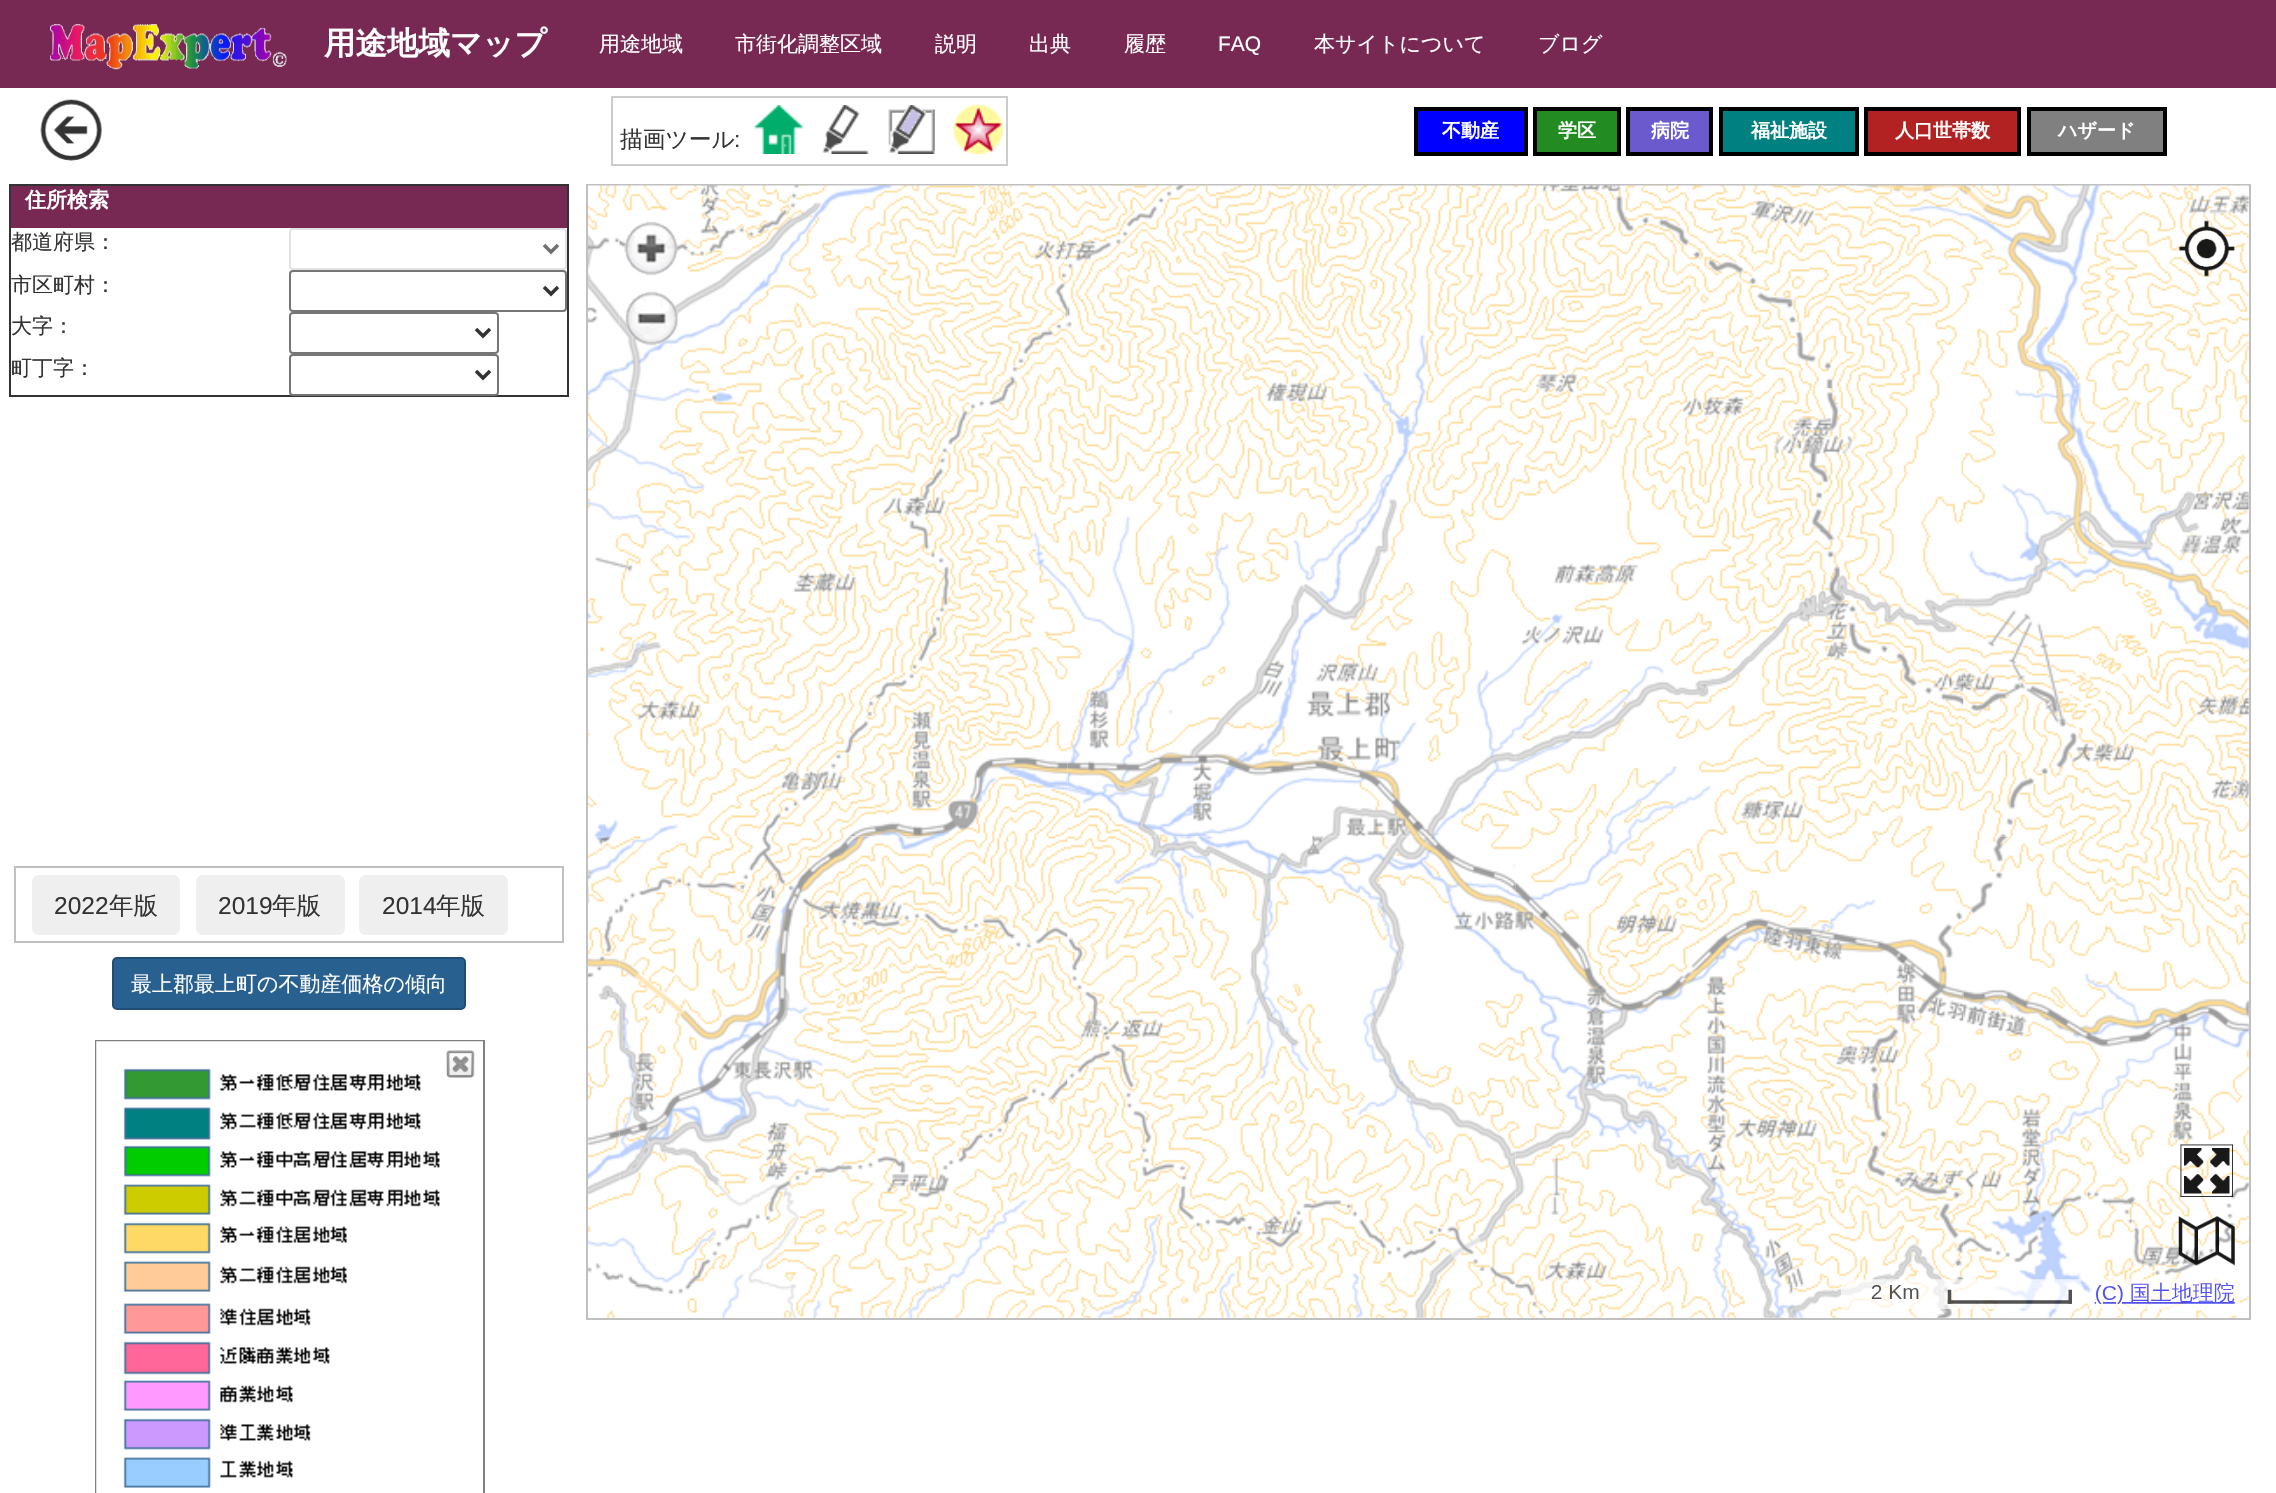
void draw(SkCanvas* canvas) {
  SkPaint paint;
  paint.setAntiAlias(true);
  auto face = [&](const char* family, int weight, float size, bool italic = false) {
    SkFontStyle style(weight, SkFontStyle::kNormal_Width,
      italic ? SkFontStyle::kItalic_Slant : SkFontStyle::kUpright_Slant);
    SkFont result(fontMgr->matchFamilyStyle(family, style), size);
    result.setSubpixel(true);
    return result;
  };
  auto paste = [&](const char* path, float x, float y, float w, float h) {
    auto image = SkImages::DeferredFromEncodedData(SkData::MakeFromFileName(path));
    canvas->drawImageRect(image, SkRect::MakeXYWH(x, y, w, h), SkSamplingOptions());
  };
  auto shape = [&](const char* data, bool evenOdd = false) {
    SkPath result = *SkParsePath::FromSVGString(data);
    if (evenOdd) result.setFillType(SkPathFillType::kEvenOdd);
    return result;
  };
  canvas->clear(0xffffffff);
  paint.setColor(0xff772953);
  canvas->drawRect(SkRect::MakeXYWH(0, 0, 2276, 88), paint);
  paste("img/1.png", 50, 24, 237, 46);
  paste("img/2.png", 40, 99, 62, 62);
  paint.setStroke(true);
  paint.setStrokeWidth(2);
  paint.setColor(0xffcccccc);
  canvas->drawRect(SkRect::MakeXYWH(612, 97, 395, 68), paint);
  paste("img/3.png", 754, 105, 50, 49);
  paste("img/4.png", 822, 105, 47, 49);
  paste("img/5.png", 888, 105, 47, 49);
  paste("img/6.png", 953, 105, 50, 49);
  paint.setStroke(false);
  paint.setColor(0xff0000ff);
  canvas->drawRect(SkRect::MakeXYWH(1416, 109, 110, 45), paint);
  paint.setStroke(true);
  paint.setStrokeWidth(4);
  paint.setColor(0xff000000);
  canvas->drawRect(SkRect::MakeXYWH(1416, 109, 110, 45), paint);
  paint.setStroke(false);
  paint.setColor(0xff228b22);
  canvas->drawRect(SkRect::MakeXYWH(1535, 109, 84, 45), paint);
  paint.setStroke(true);
  paint.setColor(0xff000000);
  canvas->drawRect(SkRect::MakeXYWH(1535, 109, 84, 45), paint);
  paint.setStroke(false);
  paint.setColor(0xff6a5acd);
  canvas->drawRect(SkRect::MakeXYWH(1628, 109, 83, 45), paint);
  paint.setStroke(true);
  paint.setColor(0xff000000);
  canvas->drawRect(SkRect::MakeXYWH(1628, 109, 83, 45), paint);
  paint.setStroke(false);
  paint.setColor(0xff008080);
  canvas->drawRect(SkRect::MakeXYWH(1721, 109, 136, 45), paint);
  paint.setStroke(true);
  paint.setColor(0xff000000);
  canvas->drawRect(SkRect::MakeXYWH(1721, 109, 136, 45), paint);
  paint.setStroke(false);
  paint.setColor(0xffb22222);
  canvas->drawRect(SkRect::MakeXYWH(1866, 109, 153, 45), paint);
  paint.setStroke(true);
  paint.setColor(0xff000000);
  canvas->drawRect(SkRect::MakeXYWH(1866, 109, 153, 45), paint);
  paint.setStroke(false);
  paint.setColor(0xff808080);
  canvas->drawRect(SkRect::MakeXYWH(2029, 109, 136, 45), paint);
  paint.setStroke(true);
  paint.setColor(0xff000000);
  canvas->drawRect(SkRect::MakeXYWH(2029, 109, 136, 45), paint);
  paint.setStrokeWidth(2);
  paint.setColor(0xff333333);
  canvas->drawRect(SkRect::MakeXYWH(10, 185, 558, 211), paint);
  paint.setStroke(false);
  paint.setColor(0xff772953);
  canvas->drawRect(SkRect::MakeXYWH(11, 186, 556, 42), paint);
  paint.setStroke(true);
  paint.setColor(0xffe2e2e2);
  canvas->drawRoundRect(SkRect::MakeXYWH(290, 229, 276, 40), 3, 3, paint);
  paint.setStrokeWidth(3.5f);
  paint.setColor(0xff707070);
  canvas->drawPath(shape("M544 245L551 252L558 245"), paint);
  paint.setStrokeWidth(2);
  paint.setColor(0xff767676);
  canvas->drawRoundRect(SkRect::MakeXYWH(290, 271, 276, 40), 3, 3, paint);
  paint.setStrokeWidth(3.5f);
  paint.setColor(0xff333333);
  canvas->drawPath(shape("M544 287L551 294L558 287"), paint);
  paint.setStrokeWidth(2);
  paint.setColor(0xff767676);
  canvas->drawRoundRect(SkRect::MakeXYWH(290, 313, 208, 40), 3, 3, paint);
  paint.setStrokeWidth(3.5f);
  paint.setColor(0xff333333);
  canvas->drawPath(shape("M476 329L483 336L490 329"), paint);
  paint.setStroke(false);
  paint.setColor(0xffffffff);
  canvas->drawRoundRect(SkRect::MakeXYWH(290, 355, 208, 40), 3, 3, paint);
  paint.setStroke(true);
  paint.setStrokeWidth(2);
  paint.setColor(0xff767676);
  canvas->drawRoundRect(SkRect::MakeXYWH(290, 355, 208, 40), 3, 3, paint);
  paint.setStrokeWidth(3.5f);
  paint.setColor(0xff333333);
  canvas->drawPath(shape("M476 371L483 378L490 371"), paint);
  paint.setStrokeWidth(2);
  paint.setColor(0xffc0c0c0);
  canvas->drawRect(SkRect::MakeXYWH(15, 867, 548, 75), paint);
  paint.setStroke(false);
  paint.setColor(0xffefefef);
  canvas->drawRoundRect(SkRect::MakeXYWH(32, 875, 148, 60), 7, 7, paint);
  canvas->drawRoundRect(SkRect::MakeXYWH(196, 875, 149, 60), 7, 7, paint);
  canvas->drawRoundRect(SkRect::MakeXYWH(359, 875, 149, 60), 7, 7, paint);
  paint.setColor(0xff286090);
  canvas->drawRoundRect(SkRect::MakeXYWH(113, 958, 352, 51), 4, 4, paint);
  paint.setStroke(true);
  paint.setColor(0xff204d74);
  canvas->drawRoundRect(SkRect::MakeXYWH(113, 958, 352, 51), 4, 4, paint);
  paint.setColor(0xff808080);
  canvas->drawRect(SkRect::MakeXYWH(96, 1041, 388, 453), paint);
  paste("img/7.png", 96, 1041, 387, 452);
  paste("img/8.png", 446, 1050, 29, 28);
  paint.setColor(0xffc0c0c0);
  canvas->drawRect(SkRect::MakeXYWH(587, 185, 1663, 1134), paint);
  paste("img/9.png", 588, 185, 1661, 1133);
  auto f0 = face("WenQuanYi Zen Hei", 700, 31.5f);
  paint.setStroke(false);
  paint.setColor(0xffffffff);
  canvas->drawString("用途地域マップ", 324, 54, f0, paint);
  auto f1 = face("WenQuanYi Zen Hei", 500, 21);
  {
    const struct { const char* s; float x, y; } items[] = {
      {"用途地域", 599, 51},
      {"市街化調整区域", 735, 51},
      {"説明", 935, 51},
      {"出典", 1029, 51},
      {"履歴", 1124, 51},
    };
    for (auto [s, x, y] : items) {
      canvas->drawString(s, x, y, f1, paint);
    }
  }
  auto f2 = face("Liberation Sans", 400, 21);
  canvas->drawString("FAQ", 1218, 51, f2, paint);
  canvas->drawString("本サイトについて", 1314, 51, f1, paint);
  canvas->drawString("ブログ", 1538, 51, f1, paint);
  auto f3 = face("WenQuanYi Zen Hei", 500, 22.75f);
  paint.setColor(0xff333333);
  canvas->drawString("描画ツール", 620, 147, f3, paint);
  auto f4 = face("Liberation Sans", 400, 22.75f);
  canvas->drawString(":", 734, 147, f4, paint);
  auto f5 = face("WenQuanYi Zen Hei", 700, 19);
  paint.setColor(0xffffffff);
  {
    const struct { const char* s; float x, y; } items[] = {
      {"不動産", 1442, 137},
      {"学区", 1558, 137},
      {"病院", 1651, 137},
      {"福祉施設", 1751, 137},
      {"人口世帯数", 1895, 137},
      {"ハザード", 2058, 137},
    };
    for (auto [s, x, y] : items) {
      canvas->drawString(s, x, y, f5, paint);
    }
  }
  auto f6 = face("WenQuanYi Zen Hei", 700, 21);
  canvas->drawString("住所検索", 25, 207, f6, paint);
  paint.setColor(0xff333333);
  {
    const struct { const char* s; float x, y; } items[] = {
      {"都道府県：", 11, 249},
      {"市区町村：", 11, 292},
      {"大字：", 11, 333},
      {"町丁字：", 11, 375},
    };
    for (auto [s, x, y] : items) {
      canvas->drawString(s, x, y, f1, paint);
    }
  }
  auto f7 = face("Liberation Sans", 400, 24.5f);
  canvas->drawString("2022", 54, 914, f7, paint);
  auto f8 = face("WenQuanYi Zen Hei", 500, 24.5f);
  canvas->drawString("年版", 109, 914, f8, paint);
  canvas->drawString("2019", 218, 914, f7, paint);
  canvas->drawString("年版", 272, 914, f8, paint);
  canvas->drawString("2014", 382, 914, f7, paint);
  canvas->drawString("年版", 436, 914, f8, paint);
  paint.setColor(0xffffffff);
  canvas->drawString("最上郡最上町の不動産価格の傾向", 131, 991, f1, paint);
}
